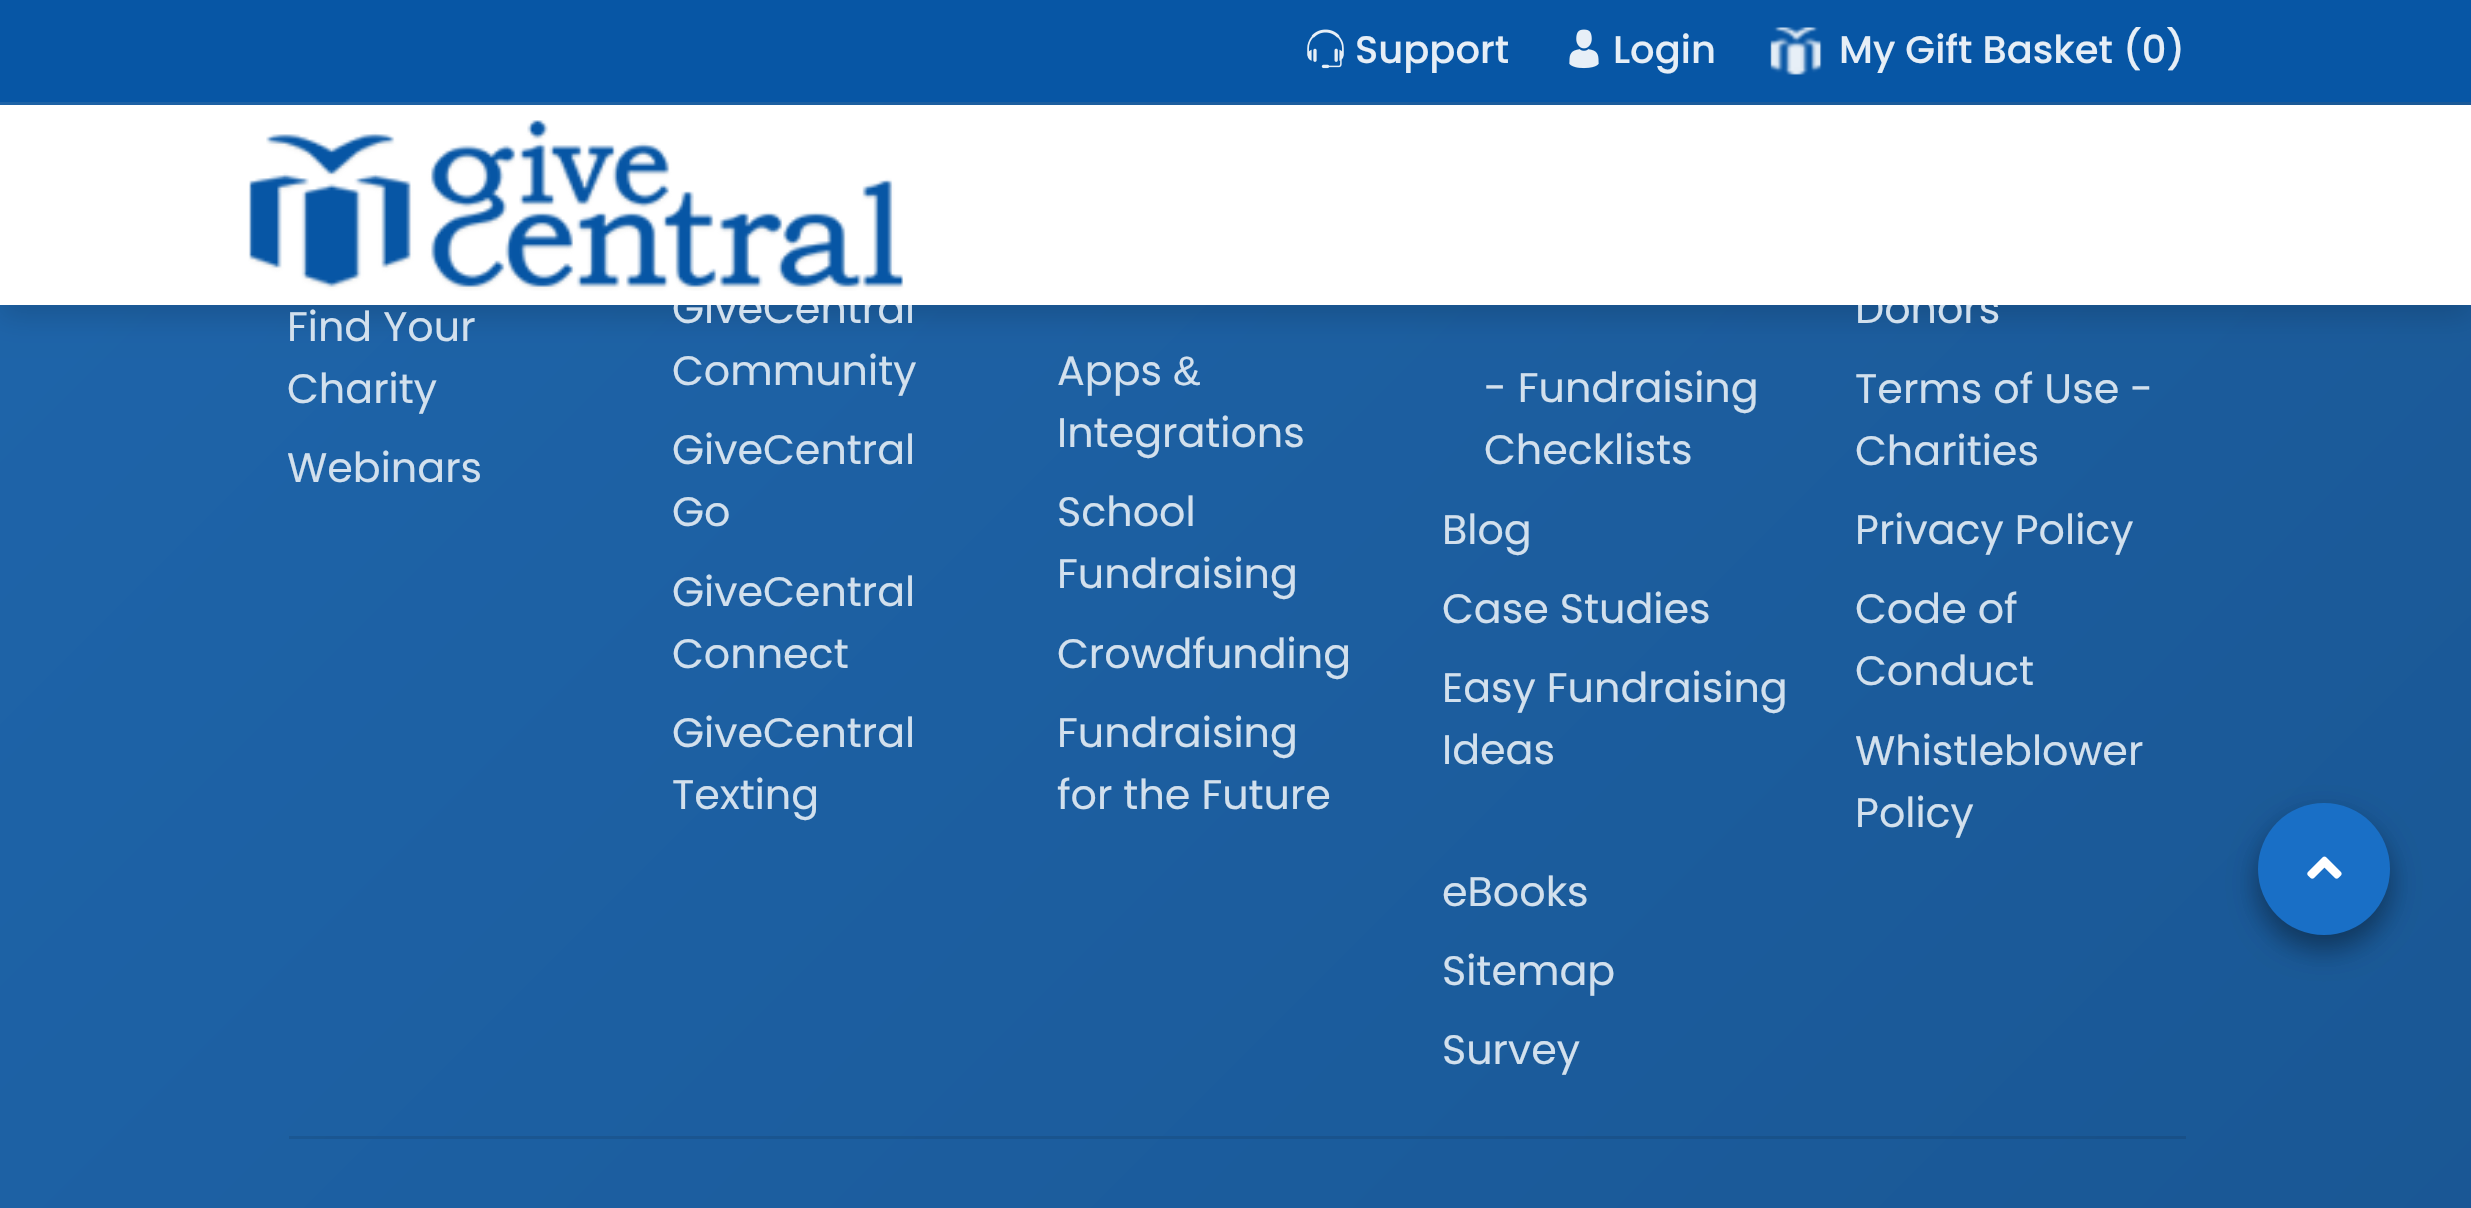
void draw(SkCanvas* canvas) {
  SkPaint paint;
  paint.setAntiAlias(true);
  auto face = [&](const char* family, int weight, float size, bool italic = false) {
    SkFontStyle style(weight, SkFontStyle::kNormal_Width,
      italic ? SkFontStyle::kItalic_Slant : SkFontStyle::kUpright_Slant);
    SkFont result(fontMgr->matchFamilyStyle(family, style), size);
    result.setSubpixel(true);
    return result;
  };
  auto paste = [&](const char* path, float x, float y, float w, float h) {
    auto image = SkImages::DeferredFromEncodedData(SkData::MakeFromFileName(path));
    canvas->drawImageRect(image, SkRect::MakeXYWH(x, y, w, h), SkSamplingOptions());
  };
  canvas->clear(0xffffffff);
  {
    const SkColor colors[] = {0xff195591, 0xff1f67ae};
    const float stops[] = {0, 1};
    const SkPoint ends[] = {{2417, 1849}, {56, -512}};
    paint.setShader(SkGradientShader::MakeLinear(ends, colors, stops, 2, SkTileMode::kClamp));
    paint.setAlpha(255);
  }
  canvas->drawRect(SkRect::MakeXYWH(0, 102, 2471, 1106), paint);
  paint.setShader(nullptr);
  paint.setColor(0x26000000);
  paint.setMaskFilter(SkMaskFilter::MakeBlur(kNormal_SkBlurStyle, 14));
  canvas->drawRect(SkRect::MakeXYWH(0, 116, 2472, 200), paint);
  paint.setMaskFilter(nullptr);
  paint.setColor(0xff0756a5);
  canvas->drawRect(SkRect::MakeXYWH(0, 0, 2471, 102), paint);
  paste("img/1.png", 1307, 29, 37, 40);
  paste("img/2.png", 1569, 29, 30, 40);
  paste("img/3.png", 1770, 27, 52, 48);
  {
    const SkColor colors[] = {0xff174d83, 0xff1c5d9d};
    const float stops[] = {0, 1};
    const SkPoint ends[] = {{2417, 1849}, {56, -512}};
    paint.setShader(SkGradientShader::MakeLinear(ends, colors, stops, 2, SkTileMode::kClamp));
    paint.setAlpha(255);
  }
  canvas->drawRect(SkRect::MakeXYWH(289, 1136, 1897, 3), paint);
  paint.setShader(nullptr);
  paint.setColor(0x38000000);
  paint.setMaskFilter(SkMaskFilter::MakeBlur(kNormal_SkBlurStyle, 14));
  canvas->drawRoundRect(SkRect::MakeXYWH(2258, 817, 132, 132), 66, 66, paint);
  paint.setMaskFilter(nullptr);
  paint.setColor(0x36000000);
  paint.setMaskFilter(SkMaskFilter::MakeBlur(kNormal_SkBlurStyle, 14));
  canvas->drawRoundRect(SkRect::MakeXYWH(2258, 817, 132, 132), 66, 66, paint);
  paint.setMaskFilter(nullptr);
  paint.setColor(0xff196fc6);
  canvas->drawCircle(2324, 869, 66, paint);
  paste("img/5.png", 2307, 856, 35, 23);
  auto f0 = face("Poppins", 500, 38.5f);
  paint.setColor(0xffe6eef6);
  {
    const struct { const char* s; float x, y; } items[] = {
      {"Support", 1355, 63},
      {"Login", 1613, 63},
      {"My Gift Basket (0)", 1839, 63},
    };
    for (auto [s, x, y] : items) {
      canvas->drawString(s, x, y, f0, paint);
    }
  }
  auto f1 = face("Poppins", 400, 41.25f);
  paint.setColor(0xffd2e0ed);
  {
    const struct { const char* s; float x, y; } items[] = {
      {"Find Your", 287, 341},
      {"Charity", 287, 403},
      {"Webinars", 287, 482},
      {"GiveCentral", 672, 323},
      {"Community", 672, 385},
      {"GiveCentral", 672, 464},
      {"Go", 672, 526},
      {"GiveCentral", 672, 606},
      {"Connect", 672, 668},
      {"GiveCentral", 672, 747},
      {"Texting", 672, 809},
      {"Apps", 1057, 385},
    };
    for (auto [s, x, y] : items) {
      canvas->drawString(s, x, y, f1, paint);
    }
  }
  auto f2 = face("Liberation Sans", 400, 41.25f);
  canvas->drawString("&", 1173, 385, f2, paint);
  {
    const struct { const char* s; float x, y; } items[] = {
      {"Integrations", 1057, 447},
      {"School", 1057, 526},
      {"Fundraising", 1057, 588},
      {"Crowdfunding", 1057, 668},
      {"Fundraising", 1057, 747},
      {"for the Future", 1057, 809},
      {"- Fundraising", 1484, 402},
      {"Checklists", 1484, 464},
      {"Blog", 1442, 544},
      {"Case Studies", 1442, 623},
      {"Easy Fundraising", 1442, 702},
      {"Ideas", 1442, 764},
      {"eBooks", 1442, 906},
      {"Sitemap", 1442, 985},
      {"Survey", 1442, 1064},
      {"Donors", 1855, 323},
    };
    for (auto [s, x, y] : items) {
      canvas->drawString(s, x, y, f1, paint);
    }
  }
  paint.setColor(0xffffffff);
  canvas->drawRect(SkRect::MakeXYWH(0, 105, 2471, 200), paint);
  paste("img/4.png", 248, 120, 656, 171);
  paint.setColor(0xffd2e0ed);
  {
    const struct { const char* s; float x, y; } items[] = {
      {"Terms of Use -", 1855, 403},
      {"Charities", 1855, 465},
      {"Privacy Policy", 1855, 544},
      {"Code of", 1855, 623},
      {"Conduct", 1855, 685},
      {"Whistleblower", 1855, 765},
      {"Policy", 1855, 827},
    };
    for (auto [s, x, y] : items) {
      canvas->drawString(s, x, y, f1, paint);
    }
  }
}
